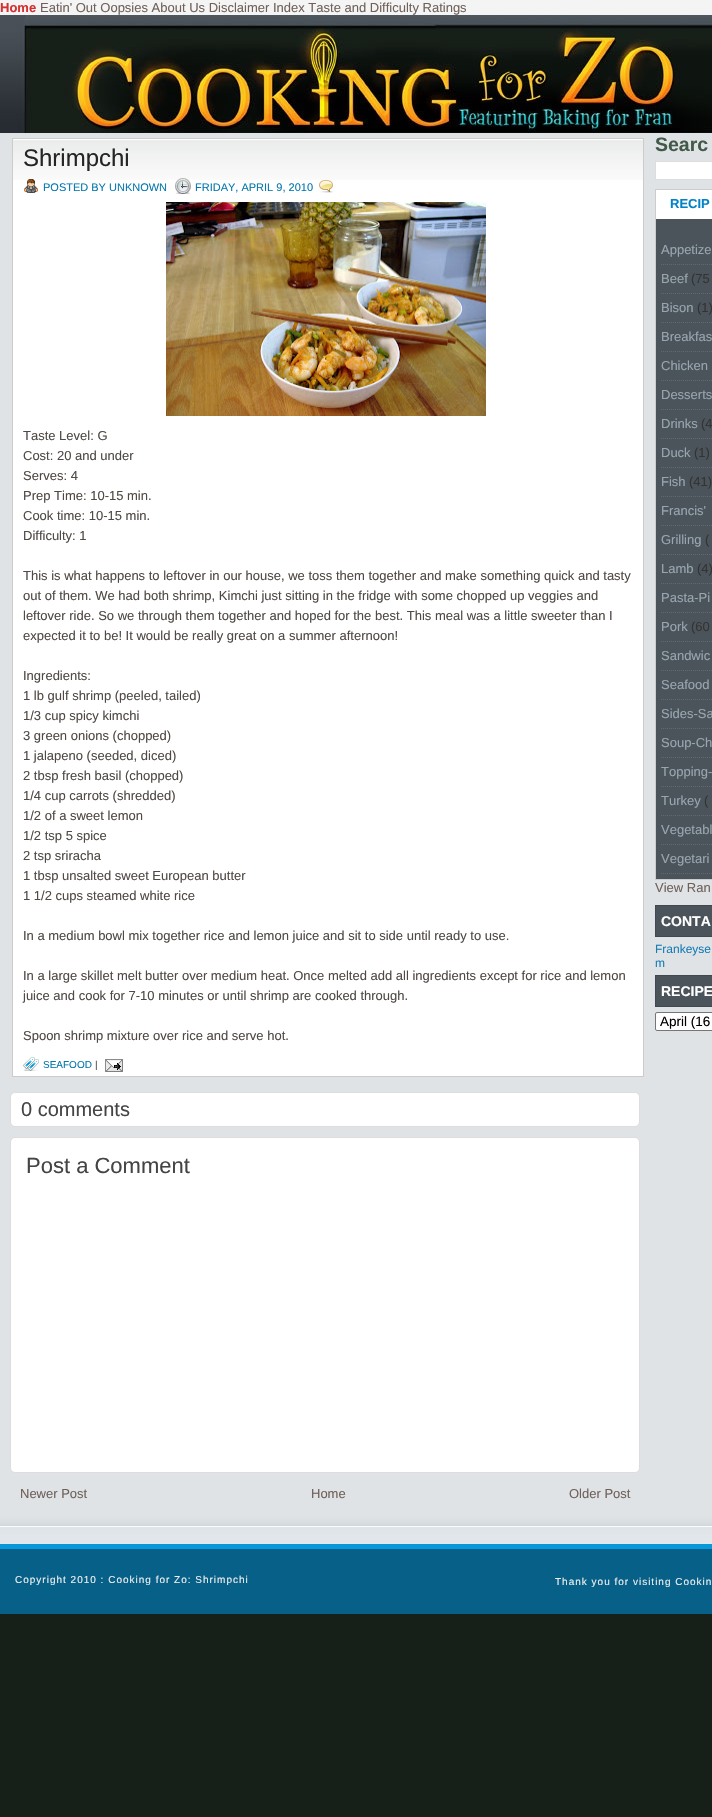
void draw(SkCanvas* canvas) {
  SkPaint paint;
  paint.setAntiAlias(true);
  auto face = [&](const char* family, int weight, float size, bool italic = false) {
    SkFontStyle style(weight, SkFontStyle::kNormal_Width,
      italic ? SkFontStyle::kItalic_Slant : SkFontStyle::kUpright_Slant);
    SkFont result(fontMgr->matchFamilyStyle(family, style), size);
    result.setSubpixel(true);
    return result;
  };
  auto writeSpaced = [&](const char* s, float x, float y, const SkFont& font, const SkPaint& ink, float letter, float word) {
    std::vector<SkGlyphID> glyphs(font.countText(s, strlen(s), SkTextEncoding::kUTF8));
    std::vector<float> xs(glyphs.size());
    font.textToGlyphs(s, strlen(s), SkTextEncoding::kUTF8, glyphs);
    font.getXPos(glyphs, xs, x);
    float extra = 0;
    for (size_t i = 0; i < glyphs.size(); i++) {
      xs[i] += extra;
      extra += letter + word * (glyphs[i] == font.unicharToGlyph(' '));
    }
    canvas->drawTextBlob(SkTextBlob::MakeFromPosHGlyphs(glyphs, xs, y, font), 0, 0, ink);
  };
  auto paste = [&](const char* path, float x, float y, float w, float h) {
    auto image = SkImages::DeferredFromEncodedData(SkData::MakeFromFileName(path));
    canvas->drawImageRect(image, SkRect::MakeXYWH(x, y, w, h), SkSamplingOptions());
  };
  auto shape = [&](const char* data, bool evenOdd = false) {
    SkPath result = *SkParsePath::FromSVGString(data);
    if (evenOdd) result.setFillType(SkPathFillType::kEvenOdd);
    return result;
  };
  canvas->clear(0xff171f19);
  paint.setColor(0xfff4f4f4);
  canvas->drawRect(SkRect::MakeXYWH(0, 0, 712, 15), paint);
  paste("img/1.png", 0, 15, 712, 118);
  paint.setColor(0xffdfe3e6);
  canvas->drawRect(SkRect::MakeXYWH(0, 133, 712, 1381), paint);
  paint.setColor(0xffffffff);
  canvas->drawRect(SkRect::MakeXYWH(13, 139, 630, 937), paint);
  paste("img/2.png", 13, 140, 630, 40);
  paint.setStroke(true);
  paint.setStrokeWidth(1);
  paint.setColor(0xffcccccc);
  canvas->drawRect(SkRect::MakeXYWH(12.5f, 138.5f, 631, 938), paint);
  paste("img/3.png", 24, 179, 14, 14);
  paste("img/4.png", 175, 178, 16, 16);
  paste("img/5.png", 319, 180, 14, 13);
  paste("img/6.png", 166, 202, 320, 214);
  paste("img/7.png", 23, 1057, 16, 14);
  paste("img/8.png", 105, 1059, 18, 13);
  paint.setStroke(false);
  paint.setColor(0xffffffff);
  canvas->drawRoundRect(SkRect::MakeXYWH(10.5f, 1092.5f, 629, 34), 4.5f, 4.5f, paint);
  paint.setStroke(true);
  paint.setColor(0xffdedcdd);
  canvas->drawRoundRect(SkRect::MakeXYWH(10.5f, 1092.5f, 629, 34), 4.5f, 4.5f, paint);
  paint.setStroke(false);
  paint.setColor(0xffffffff);
  canvas->drawRoundRect(SkRect::MakeXYWH(10.5f, 1137.5f, 629, 335), 4.5f, 4.5f, paint);
  paint.setStroke(true);
  paint.setColor(0xffdedcdd);
  canvas->drawRoundRect(SkRect::MakeXYWH(10.5f, 1137.5f, 629, 335), 4.5f, 4.5f, paint);
  paint.setStroke(false);
  paint.setColor(0xffffffff);
  canvas->drawRect(SkRect::MakeXYWH(655.5f, 161.5f, 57, 18), paint);
  paint.setStroke(true);
  paint.setColor(0xffdddddd);
  canvas->drawRect(SkRect::MakeXYWH(655.5f, 161.5f, 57, 18), paint);
  paint.setStroke(false);
  paint.setColor(0xffffffff);
  canvas->drawRect(SkRect::MakeXYWH(656, 190, 56, 29), paint);
  paint.setStroke(true);
  paint.setColor(0xffcccccc);
  canvas->drawRect(SkRect::MakeXYWH(655.5f, 189.5f, 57, 690), paint);
  paint.setStroke(false);
  paint.setColor(0xff4b545b);
  canvas->drawRect(SkRect::MakeXYWH(656, 219, 56, 660), paint);
  paint.setStroke(true);
  paint.setColor(0xff61696f);
  paint.setPathEffect(SkDashPathEffect::Make({{1, 1}}, 0));
  canvas->drawPath(shape("M661 264.5H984M661 293.5H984M661 322.5H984"), paint);
  paint.setPathEffect(nullptr);
  paint.setPathEffect(SkDashPathEffect::Make({{1, 1}}, 0));
  canvas->drawPath(shape("M661 351.5H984M661 380.5H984M661 409.5H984"), paint);
  paint.setPathEffect(nullptr);
  paint.setPathEffect(SkDashPathEffect::Make({{1, 1}}, 0));
  canvas->drawPath(shape("M661 438.5H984M661 467.5H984M661 496.5H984"), paint);
  paint.setPathEffect(nullptr);
  paint.setPathEffect(SkDashPathEffect::Make({{1, 1}}, 0));
  canvas->drawPath(shape("M661 525.5H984M661 554.5H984M661 583.5H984"), paint);
  paint.setPathEffect(nullptr);
  paint.setPathEffect(SkDashPathEffect::Make({{1, 1}}, 0));
  canvas->drawPath(shape("M661 612.5H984M661 641.5H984M661 670.5H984"), paint);
  paint.setPathEffect(nullptr);
  paint.setPathEffect(SkDashPathEffect::Make({{1, 1}}, 0));
  canvas->drawPath(shape("M661 699.5H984M661 728.5H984M661 757.5H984"), paint);
  paint.setPathEffect(nullptr);
  paint.setPathEffect(SkDashPathEffect::Make({{1, 1}}, 0));
  canvas->drawPath(shape("M661 786.5H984M661 815.5H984M661 844.5H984"), paint);
  paint.setPathEffect(nullptr);
  paint.setPathEffect(SkDashPathEffect::Make({{1, 1}}, 0));
  canvas->drawPath(shape("M661 873.5H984"), paint);
  paint.setPathEffect(nullptr);
  paint.setStroke(false);
  paint.setColor(0xff4b545b);
  canvas->drawRect(SkRect::MakeXYWH(655.5f, 905.5f, 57, 31), paint);
  paint.setStroke(true);
  paint.setColor(0xff40494f);
  canvas->drawRect(SkRect::MakeXYWH(655.5f, 905.5f, 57, 31), paint);
  paint.setStroke(false);
  paint.setColor(0xff4b545b);
  canvas->drawRect(SkRect::MakeXYWH(655.5f, 975.5f, 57, 31), paint);
  paint.setStroke(true);
  paint.setColor(0xff40494f);
  canvas->drawRect(SkRect::MakeXYWH(655.5f, 975.5f, 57, 31), paint);
  paint.setStroke(false);
  paint.setColor(0xffffffff);
  canvas->drawRoundRect(SkRect::MakeXYWH(655.5f, 1012.5f, 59, 18), 1.5f, 1.5f, paint);
  paint.setStroke(true);
  paint.setColor(0xff767676);
  canvas->drawRoundRect(SkRect::MakeXYWH(655.5f, 1012.5f, 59, 18), 1.5f, 1.5f, paint);
  paste("img/9.png", 0, 1514, 712, 30);
  paint.setStroke(false);
  paint.setColor(0xff066088);
  canvas->drawRect(SkRect::MakeXYWH(0, 1549, 712, 65), paint);
  paint.setColor(0xff0998da);
  canvas->drawRect(SkRect::MakeXYWH(0, 1544, 712, 5), paint);
  auto f0 = face("Liberation Sans", 700, 13);
  paint.setColor(0xffd53030);
  canvas->drawString("Home", 0, 12, f0, paint);
  auto f1 = face("Liberation Sans", 400, 13);
  paint.setColor(0xff6f615a);
  canvas->drawString("Eatin' Out Oopsies About Us Disclaimer Index Taste and Difficulty Ratings", 40, 12, f1, paint);
  auto f2 = face("Liberation Sans", 400, 24);
  paint.setColor(0xff252525);
  canvas->drawString("Shrimpchi", 23, 166, f2, paint);
  auto f3 = face("Liberation Sans", 400, 11);
  paint.setColor(0xff0578ad);
  canvas->drawString("POSTED BY UNKNOWN", 43, 191, f3, paint);
  canvas->drawString("FRIDAY, APRIL 9, 2010", 195, 191, f3, paint);
  paint.setColor(0xff504945);
  {
    const struct { const char* s; float x, y; } items[] = {
      {"Taste Level: G", 23, 440},
      {"Cost: 20 and under", 23, 460},
      {"Serves: 4", 23, 480},
      {"Prep Time: 10-15 min.", 23, 500},
      {"Cook time: 10-15 min.", 23, 520},
      {"Difficulty: 1", 23, 540},
      {"This is what happens to leftover in our house, we toss them together and make something quick and tasty", 23, 580},
      {"out of them. We had both shrimp, Kimchi just sitting in the fridge with some chopped up veggies and", 23, 600},
      {"leftover ride. So we through them together and hoped for the best. This meal was a little sweeter than I", 23, 620},
      {"expected it to be! It would be really great on a summer afternoon!", 23, 640},
      {"Ingredients:", 23, 680},
      {"1 lb gulf shrimp (peeled, tailed)", 23, 700},
      {"1/3 cup spicy kimchi", 23, 720},
      {"3 green onions (chopped)", 23, 740},
      {"1 jalapeno (seeded, diced)", 23, 760},
      {"2 tbsp fresh basil (chopped)", 23, 780},
      {"1/4 cup carrots (shredded)", 23, 800},
      {"1/2 of a sweet lemon", 23, 820},
      {"1/2 tsp 5 spice", 23, 840},
      {"2 tsp sriracha", 23, 860},
      {"1 tbsp unsalted sweet European butter", 23, 880},
      {"1 1/2 cups steamed white rice", 23, 900},
      {"In a medium bowl mix together rice and lemon juice and sit to side until ready to use.", 23, 940},
      {"In a large skillet melt butter over medium heat. Once melted add all ingredients except for rice and lemon", 23, 980},
      {"juice and cook for 7-10 minutes or until shrimp are cooked through.", 23, 1000},
      {"Spoon shrimp mixture over rice and serve hot.", 23, 1040},
    };
    for (auto [s, x, y] : items) {
      canvas->drawString(s, x, y, f1, paint);
    }
  }
  auto f4 = face("Liberation Sans", 400, 10);
  paint.setColor(0xff0578ad);
  canvas->drawString("SEAFOOD", 43, 1068, f4, paint);
  paint.setColor(0xff504945);
  canvas->drawString("|", 95, 1068, f4, paint);
  auto f5 = face("Liberation Sans", 400, 20);
  paint.setColor(0xff444444);
  canvas->drawString("0 comments", 21, 1116, f5, paint);
  auto f6 = face("Liberation Sans", 400, 22);
  canvas->drawString("Post a Comment", 26, 1173, f6, paint);
  paint.setColor(0xff6f615a);
  {
    const struct { const char* s; float x, y; } items[] = {
      {"Newer Post", 20, 1498},
      {"Home", 311, 1498},
      {"Older Post", 569, 1498},
    };
    for (auto [s, x, y] : items) {
      canvas->drawString(s, x, y, f1, paint);
    }
  }
  auto f7 = face("Liberation Sans", 700, 19.5f);
  paint.setColor(0xff435a4a);
  canvas->drawString("Searc", 655, 151, f7, paint);
  paint.setColor(0xff0283c7);
  canvas->drawString("RECIP", 670, 208, f0, paint);
  paint.setColor(0xff99a6af);
  canvas->drawString("Appetize", 661, 254, f1, paint);
  canvas->drawString("Beef", 661, 283, f1, paint);
  paint.setColor(0xff333333);
  canvas->drawString("(75", 691, 283, f1, paint);
  paint.setColor(0xff99a6af);
  canvas->drawString("Bison", 661, 312, f1, paint);
  paint.setColor(0xff333333);
  canvas->drawString("(1)", 697, 312, f1, paint);
  paint.setColor(0xff99a6af);
  {
    const struct { const char* s; float x, y; } items[] = {
      {"Breakfas", 661, 341},
      {"Chicken", 661, 370},
      {"Desserts", 661, 399},
      {"Drinks", 661, 428},
    };
    for (auto [s, x, y] : items) {
      canvas->drawString(s, x, y, f1, paint);
    }
  }
  paint.setColor(0xff333333);
  canvas->drawString("(4", 701, 428, f1, paint);
  paint.setColor(0xff99a6af);
  canvas->drawString("Duck", 661, 457, f1, paint);
  paint.setColor(0xff333333);
  canvas->drawString("(1)", 694, 457, f1, paint);
  paint.setColor(0xff99a6af);
  canvas->drawString("Fish", 661, 486, f1, paint);
  paint.setColor(0xff333333);
  canvas->drawString("(41)", 689, 486, f1, paint);
  paint.setColor(0xff99a6af);
  canvas->drawString("Francis'", 661, 515, f1, paint);
  canvas->drawString("Grilling", 661, 544, f1, paint);
  paint.setColor(0xff333333);
  canvas->drawString("(", 705, 544, f1, paint);
  paint.setColor(0xff99a6af);
  canvas->drawString("Lamb", 661, 573, f1, paint);
  paint.setColor(0xff333333);
  canvas->drawString("(4)", 697, 573, f1, paint);
  paint.setColor(0xff99a6af);
  canvas->drawString("Pasta-Pi", 661, 602, f1, paint);
  canvas->drawString("Pork", 661, 631, f1, paint);
  paint.setColor(0xff333333);
  canvas->drawString("(60", 691, 631, f1, paint);
  paint.setColor(0xff99a6af);
  {
    const struct { const char* s; float x, y; } items[] = {
      {"Sandwic", 661, 660},
      {"Seafood", 661, 689},
      {"Sides-Sa", 661, 718},
      {"Soup-Ch", 661, 747},
      {"Topping-", 661, 776},
      {"Turkey", 661, 805},
    };
    for (auto [s, x, y] : items) {
      canvas->drawString(s, x, y, f1, paint);
    }
  }
  paint.setColor(0xff333333);
  canvas->drawString("(", 704, 805, f1, paint);
  paint.setColor(0xff99a6af);
  canvas->drawString("Vegetabl", 661, 834, f1, paint);
  canvas->drawString("Vegetari", 661, 863, f1, paint);
  paint.setColor(0xff6f615a);
  canvas->drawString("View Ran", 655, 892, f1, paint);
  auto f8 = face("Liberation Sans", 700, 14);
  paint.setColor(0xffffffff);
  canvas->drawString("CONTA", 661, 926, f8, paint);
  auto f9 = face("Liberation Sans", 400, 12);
  paint.setColor(0xff187db5);
  canvas->drawString("Frankeyse", 655, 953, f9, paint);
  canvas->drawString("m", 655, 967, f9, paint);
  paint.setColor(0xffffffff);
  canvas->drawString("RECIPE", 661, 996, f8, paint);
  auto f10 = face("Liberation Sans", 400, 13.5f);
  paint.setColor(0xff000000);
  canvas->drawString("April (16", 660, 1026, f10, paint);
  paint.setColor(0xffeeeeee);
  writeSpaced("Copyright 2010 : Cooking for Zo: Shrimpchi", 15, 1583, f4, paint, 1, 0);
  writeSpaced("Thank you for visiting Cookin", 555, 1585, f4, paint, 1, 0);
}
